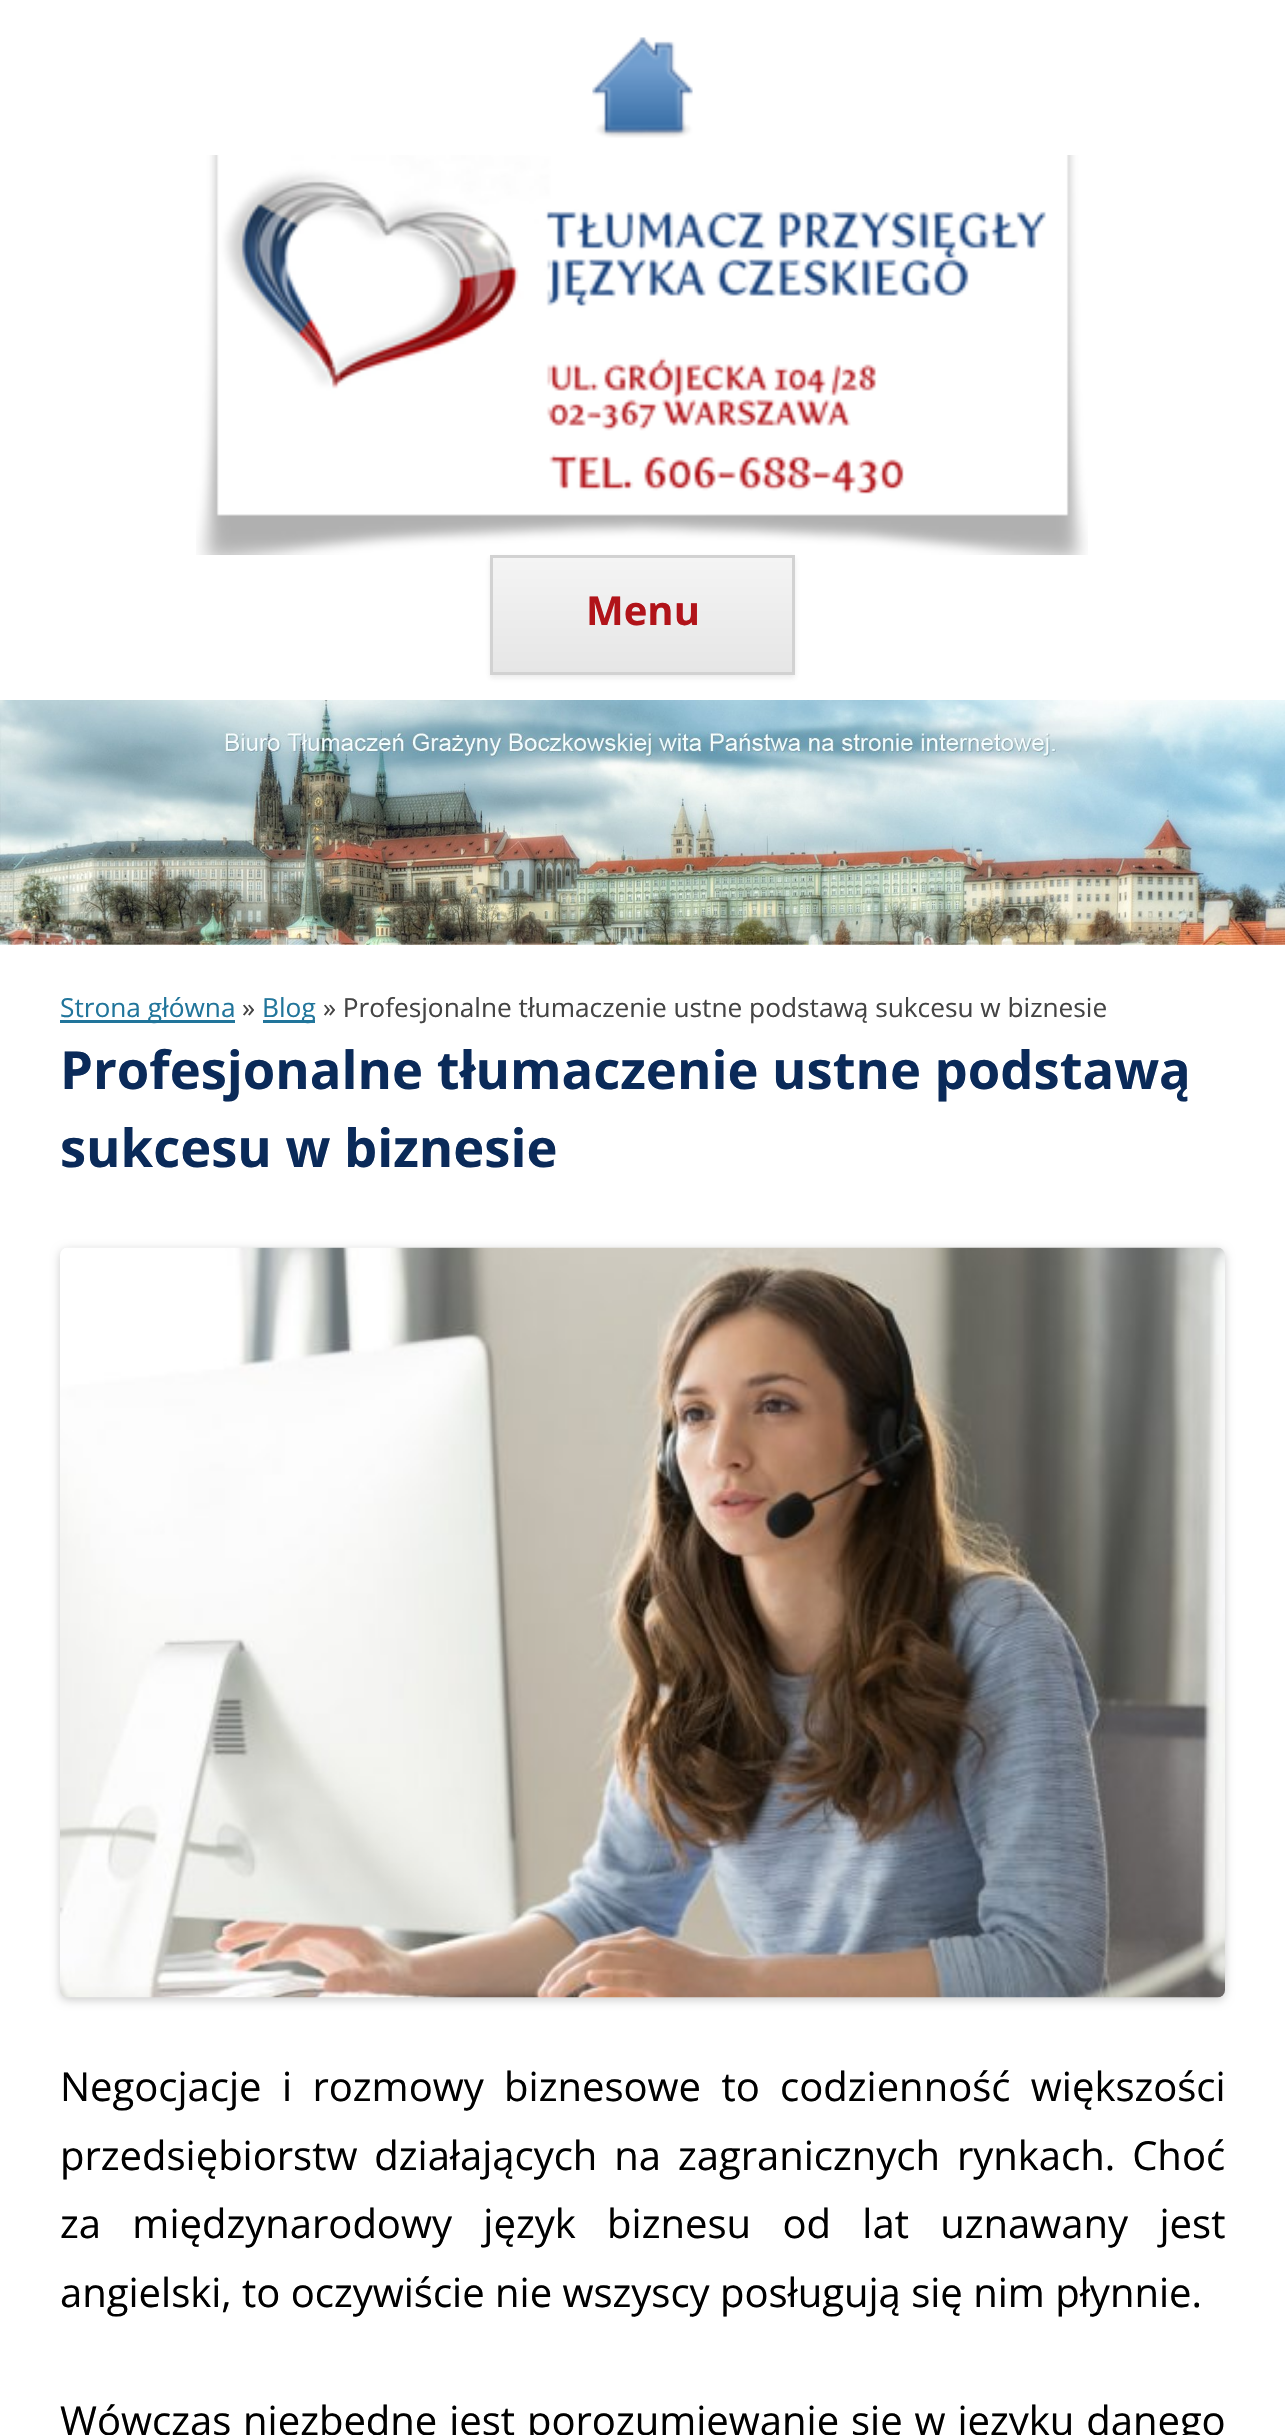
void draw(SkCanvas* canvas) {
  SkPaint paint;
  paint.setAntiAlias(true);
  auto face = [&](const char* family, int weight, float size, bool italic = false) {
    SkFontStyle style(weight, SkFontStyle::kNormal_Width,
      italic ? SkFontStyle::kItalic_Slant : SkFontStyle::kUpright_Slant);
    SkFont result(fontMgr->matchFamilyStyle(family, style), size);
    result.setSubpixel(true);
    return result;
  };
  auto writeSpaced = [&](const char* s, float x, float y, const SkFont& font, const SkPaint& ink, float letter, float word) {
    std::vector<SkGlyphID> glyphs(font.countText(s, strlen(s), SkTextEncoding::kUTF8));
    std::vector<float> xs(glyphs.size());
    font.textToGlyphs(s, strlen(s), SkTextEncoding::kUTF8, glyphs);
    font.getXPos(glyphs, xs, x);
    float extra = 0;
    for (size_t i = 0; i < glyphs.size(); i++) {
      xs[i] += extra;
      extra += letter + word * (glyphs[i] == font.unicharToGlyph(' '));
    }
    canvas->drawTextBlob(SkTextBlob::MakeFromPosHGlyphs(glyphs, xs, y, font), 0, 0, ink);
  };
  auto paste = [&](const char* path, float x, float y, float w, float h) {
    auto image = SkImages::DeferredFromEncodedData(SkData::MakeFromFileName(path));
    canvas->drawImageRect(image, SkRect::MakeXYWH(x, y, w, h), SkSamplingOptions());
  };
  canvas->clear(0xffffffff);
  paste("img/1.png", 592, 37, 101, 101);
  paint.setColor(0x1a404040);
  paint.setMaskFilter(SkMaskFilter::MakeBlur(kNormal_SkBlurStyle, 2.5f));
  canvas->drawRect(SkRect::MakeXYWH(490, 558, 305, 120), paint);
  paint.setMaskFilter(nullptr);
  paste("img/2.png", 196, 155, 892, 400);
  {
    const SkColor colors[] = {0xfff4f4f4, 0xffe6e6e6};
    const float stops[] = {0, 1};
    const SkPoint ends[] = {{643, 558}, {643, 673}};
    paint.setShader(SkGradientShader::MakeLinear(ends, colors, stops, 2, SkTileMode::kClamp));
    paint.setAlpha(255);
  }
  canvas->drawRect(SkRect::MakeXYWH(493, 559, 299, 113), paint);
  paint.setStroke(true);
  paint.setStrokeWidth(3);
  paint.setShader(nullptr);
  paint.setColor(0xffd2d2d2);
  canvas->drawRect(SkRect::MakeXYWH(491.5f, 556.5f, 302, 117), paint);
  paste("img/3.png", 0, 700, 1285, 245);
  paint.setStroke(false);
  paint.setColor(0xff21759b);
  canvas->drawRect(SkRect::MakeXYWH(60, 1020, 175, 3), paint);
  canvas->drawRect(SkRect::MakeXYWH(263, 1020, 52, 3), paint);
  paint.setColor(0x33000000);
  paint.setMaskFilter(SkMaskFilter::MakeBlur(kNormal_SkBlurStyle, 5));
  canvas->drawRoundRect(SkRect::MakeXYWH(60, 1250, 1165, 750), 8, 8, paint);
  paint.setMaskFilter(nullptr);
  paste("img/4.png", 60, 1247, 1165, 751);
  auto f0 = face("Open Sans", 700, 40);
  paint.setColor(0xffb11319);
  canvas->drawString("Menu", 586, 625, f0, paint);
  auto f1 = face("Open Sans", 400, 26.25f);
  paint.setColor(0xff21759b);
  canvas->drawString("Strona główna", 60, 1017, f1, paint);
  paint.setColor(0xff444444);
  canvas->drawString("»", 242, 1017, f1, paint);
  paint.setColor(0xff21759b);
  canvas->drawString("Blog", 262, 1017, f1, paint);
  paint.setColor(0xff444444);
  canvas->drawString("» Profesjonalne tłumaczenie ustne podstawą sukcesu w biznesie", 323, 1017, f1, paint);
  auto f2 = face("Open Sans", 700, 52.5f);
  paint.setColor(0xff0a2a59);
  canvas->drawString("Profesjonalne tłumaczenie ustne podstawą", 60, 1089, f2, paint);
  canvas->drawString("sukcesu w biznesie", 60, 1167, f2, paint);
  auto f3 = face("Open Sans", 400, 40);
  paint.setColor(0xff000000);
  writeSpaced("Negocjacje i rozmowy biznesowe to codzienność większości", 60, 2101, f3, paint, 0, 10);
  writeSpaced("przedsiębiorstw działających na zagranicznych rynkach. Choć", 60, 2170, f3, paint, 0, 6.5f);
  writeSpaced("za międzynarodowy język biznesu od lat uznawany jest", 60, 2238, f3, paint, 0, 21);
  canvas->drawString("angielski, to oczywiście nie wszyscy posługują się nim płynnie.", 60, 2307, f3, paint);
  writeSpaced("Wówczas niezbędne jest porozumiewanie się w języku danego", 60, 2435, f3, paint, 0, 1.5f);
}
